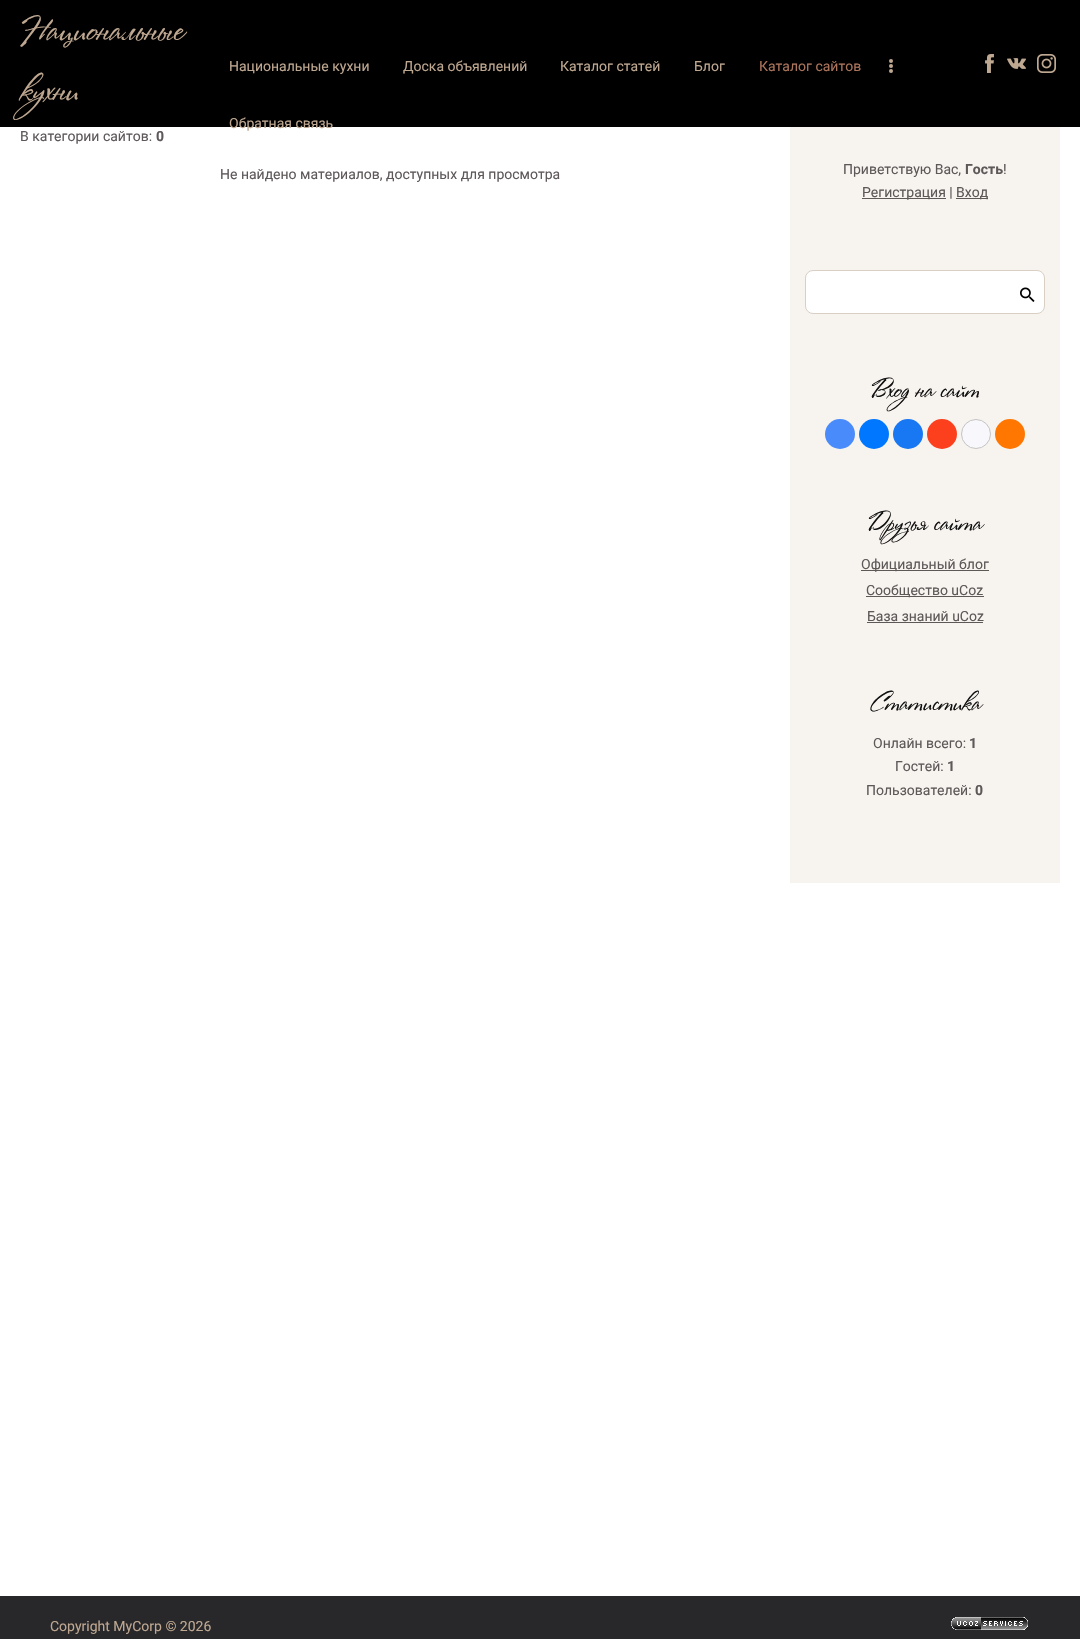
void draw(SkCanvas* canvas) {
  SkPaint paint;
  paint.setAntiAlias(true);
  auto face = [&](const char* family, int weight, float size, bool italic = false) {
    SkFontStyle style(weight, SkFontStyle::kNormal_Width,
      italic ? SkFontStyle::kItalic_Slant : SkFontStyle::kUpright_Slant);
    SkFont result(fontMgr->matchFamilyStyle(family, style), size);
    result.setSubpixel(true);
    return result;
  };
  auto paste = [&](const char* path, float x, float y, float w, float h) {
    auto image = SkImages::DeferredFromEncodedData(SkData::MakeFromFileName(path));
    canvas->drawImageRect(image, SkRect::MakeXYWH(x, y, w, h), SkSamplingOptions());
  };
  canvas->clear(0xffffffff);
  paint.setColor(0xff000000);
  canvas->drawRect(SkRect::MakeXYWH(0, 0, 1080, 127), paint);
  paint.setColor(0xffbfa891);
  canvas->drawCircle(891, 61, 2, paint);
  canvas->drawCircle(891, 66, 2, paint);
  canvas->drawCircle(891, 71, 2, paint);
  paste("img/1.png", 985, 54, 9, 19);
  paste("img/2.png", 1007, 58, 19, 11);
  paste("img/3.png", 1037, 54, 19, 19);
  {
    const struct { float x, y, w, h; SkColor color; } items[] = {
      {790, 127, 270, 756, 0xfff7f4f0},
      {862, 198, 84, 1, 0xff5e5859},
      {956, 198, 32, 1, 0xff5e5859},
    };
    for (auto [x, y, w, h, color] : items) {
      paint.setColor(color);
      canvas->drawRect(SkRect::MakeXYWH(x, y, w, h), paint);
    }
  }
  paint.setColor(0xffffffff);
  canvas->drawRoundRect(SkRect::MakeXYWH(805.5f, 270.5f, 239, 43), 7.5f, 7.5f, paint);
  paint.setStroke(true);
  paint.setStrokeWidth(1);
  paint.setColor(0xffd9cfc3);
  canvas->drawRoundRect(SkRect::MakeXYWH(805.5f, 270.5f, 239, 43), 7.5f, 7.5f, paint);
  paste("img/4.png", 1020, 287, 15, 15);
  paint.setStroke(false);
  paint.setColor(0xff498bfa);
  canvas->drawCircle(840, 434, 15, paint);
  paint.setColor(0xff0077ff);
  canvas->drawCircle(874, 434, 15, paint);
  paint.setColor(0xff1877f2);
  canvas->drawCircle(908, 434, 15, paint);
  paint.setColor(0xfffc3f1d);
  canvas->drawCircle(942, 434, 15, paint);
  paint.setColor(0xfff8f8fc);
  canvas->drawCircle(976, 434, 14.5f, paint);
  paint.setStroke(true);
  paint.setColor(0xffc4c4c4);
  canvas->drawCircle(976, 434, 14.5f, paint);
  paint.setStroke(false);
  paint.setColor(0xffff7700);
  canvas->drawCircle(1010, 434, 15, paint);
  {
    const struct { float x, y, w, h; SkColor color; } items[] = {
      {861, 570, 128, 1, 0xff5e5859},
      {866, 596, 118, 1, 0xff5e5859},
      {867, 622, 116, 1, 0xff5e5859},
      {0, 1596, 1080, 43, 0xff28282b},
    };
    for (auto [x, y, w, h, color] : items) {
      paint.setColor(color);
      canvas->drawRect(SkRect::MakeXYWH(x, y, w, h), paint);
    }
  }
  paste("img/5.png", 951, 1617, 77, 13);
  auto f0 = face("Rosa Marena", 500, 35);
  paint.setColor(0xffbfa891);
  canvas->drawString("Национальные", 20, 40, f0, paint);
  canvas->drawString("кухни", 20, 100, f0, paint);
  auto f1 = face("Roboto", 400, 14);
  {
    const struct { const char* s; float x, y; } items[] = {
      {"Национальные кухни", 229, 71},
      {"Доска объявлений", 403, 71},
      {"Каталог статей", 560, 71},
      {"Блог", 694, 71},
    };
    for (auto [s, x, y] : items) {
      canvas->drawString(s, x, y, f1, paint);
    }
  }
  paint.setColor(0xffab745b);
  canvas->drawString("Каталог сайтов", 759, 71, f1, paint);
  paint.setColor(0xffbfa891);
  canvas->drawString("Обратная связь", 229, 128, f1, paint);
  paint.setColor(0xff5e5859);
  canvas->drawString("В категории сайтов:", 20, 141, f1, paint);
  auto f2 = face("Roboto", 700, 14);
  canvas->drawString("0", 156, 141, f2, paint);
  canvas->drawString("Не найдено материалов, доступных для просмотра", 220, 179, f1, paint);
  canvas->drawString("Приветствую Вас,", 843, 174, f1, paint);
  canvas->drawString("Гость", 965, 174, f2, paint);
  {
    const struct { const char* s; float x, y; } items[] = {
      {"!", 1003, 174},
      {"Регистрация |", 862, 197},
      {"Вход", 956, 197},
    };
    for (auto [s, x, y] : items) {
      canvas->drawString(s, x, y, f1, paint);
    }
  }
  auto f3 = face("Rosa Marena", 500, 25);
  paint.setColor(0xff121111);
  canvas->drawString("Вход на сайт", 871, 397, f3, paint);
  canvas->drawString("Друзья сайта", 868, 530, f3, paint);
  paint.setColor(0xff5e5859);
  {
    const struct { const char* s; float x, y; } items[] = {
      {"Официальный блог", 861, 569},
      {"Сообщество uCoz", 866, 595},
      {"База знаний uCoz", 867, 621},
    };
    for (auto [s, x, y] : items) {
      canvas->drawString(s, x, y, f1, paint);
    }
  }
  paint.setColor(0xff121111);
  canvas->drawString("Статистика", 870, 710, f3, paint);
  paint.setColor(0xff5e5859);
  canvas->drawString("Онлайн всего:", 873, 748, f1, paint);
  canvas->drawString("1", 969, 748, f2, paint);
  canvas->drawString("Гостей:", 895, 771, f1, paint);
  canvas->drawString("1", 947, 771, f2, paint);
  canvas->drawString("Пользователей:", 866, 795, f1, paint);
  canvas->drawString("0", 975, 795, f2, paint);
  paint.setColor(0xffbfa891);
  canvas->drawString("Copyright MyCorp © 2026", 50, 1631, f1, paint);
}
